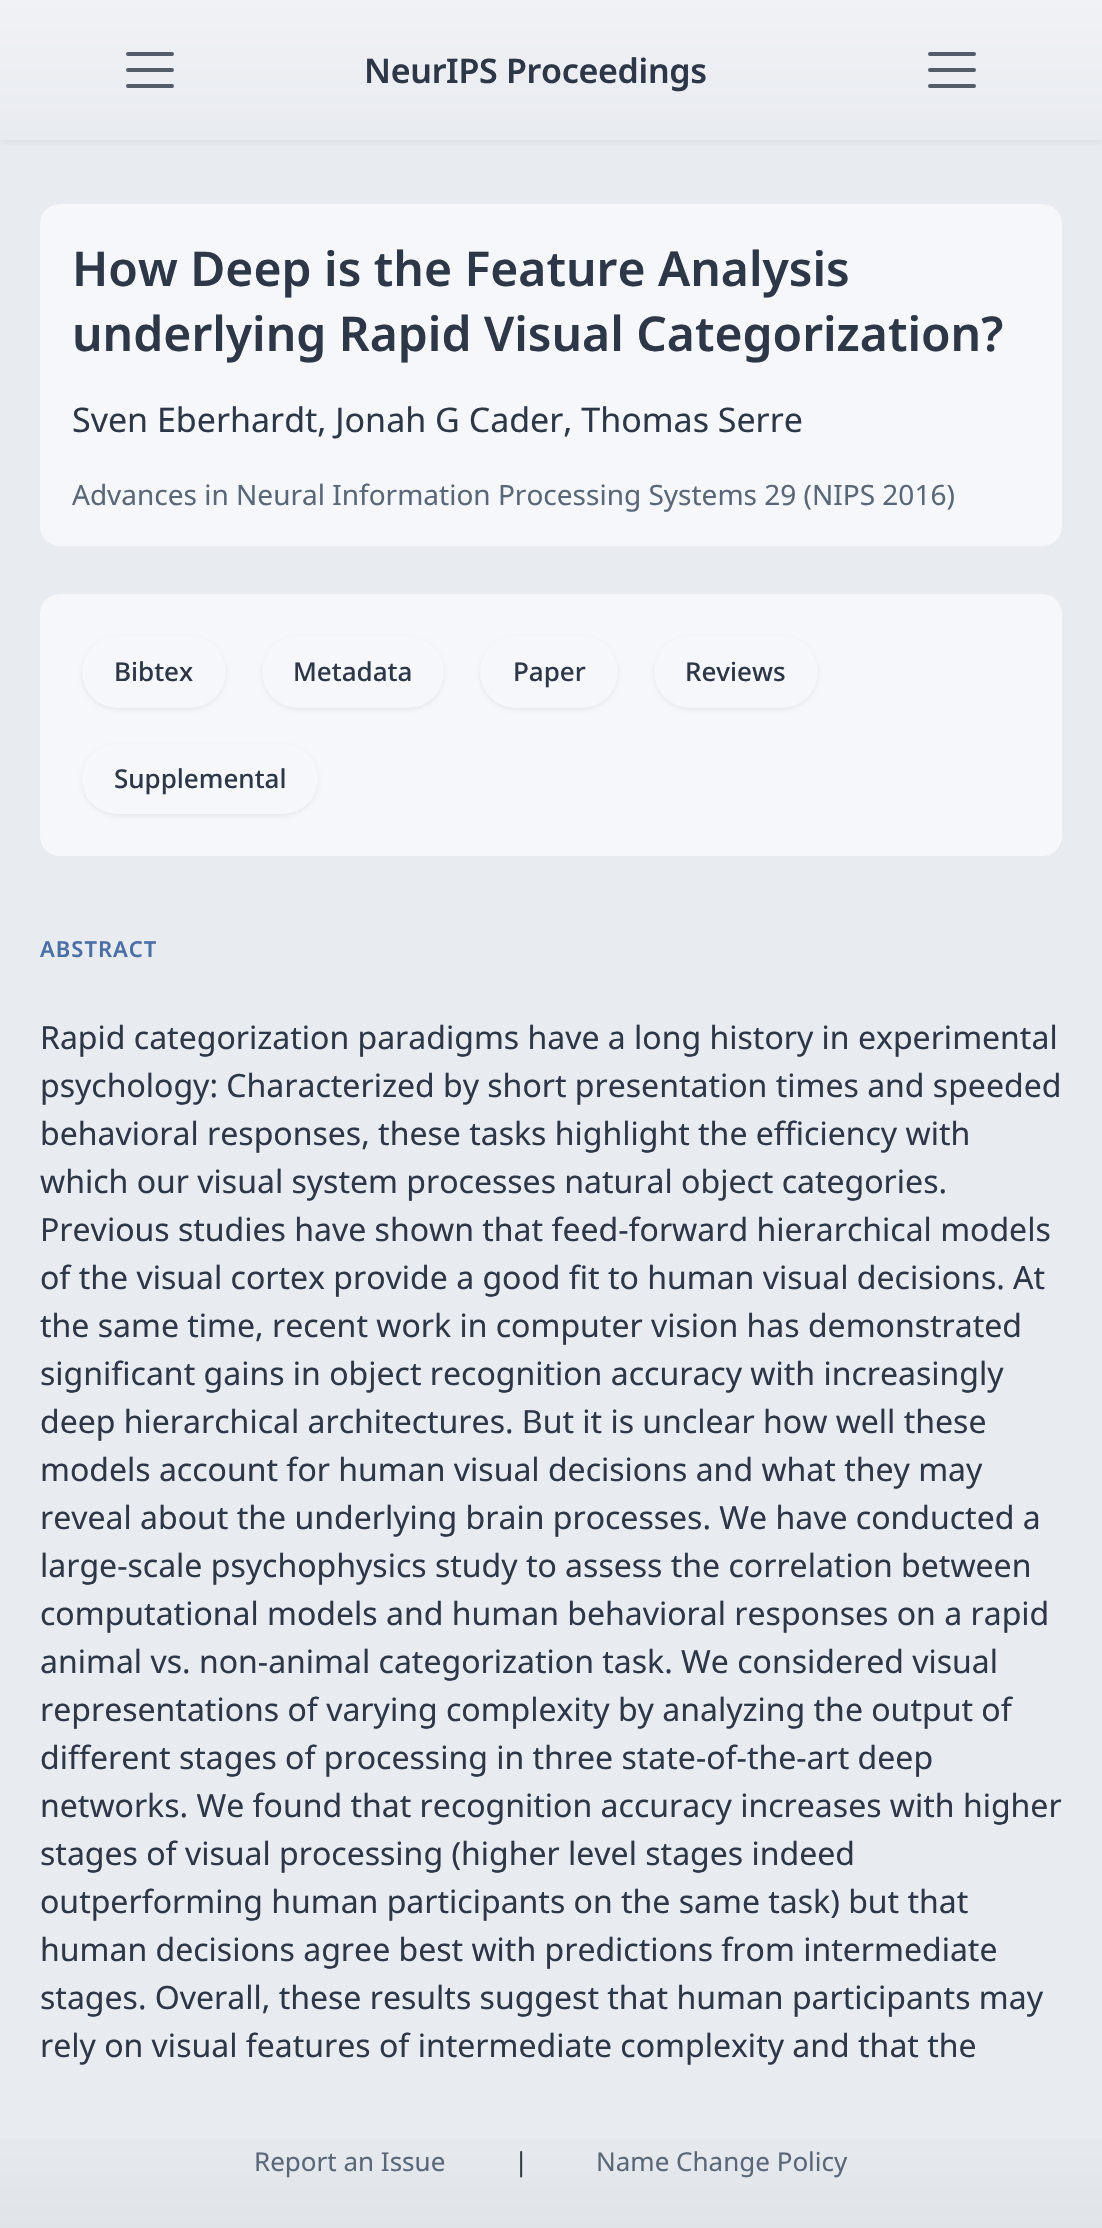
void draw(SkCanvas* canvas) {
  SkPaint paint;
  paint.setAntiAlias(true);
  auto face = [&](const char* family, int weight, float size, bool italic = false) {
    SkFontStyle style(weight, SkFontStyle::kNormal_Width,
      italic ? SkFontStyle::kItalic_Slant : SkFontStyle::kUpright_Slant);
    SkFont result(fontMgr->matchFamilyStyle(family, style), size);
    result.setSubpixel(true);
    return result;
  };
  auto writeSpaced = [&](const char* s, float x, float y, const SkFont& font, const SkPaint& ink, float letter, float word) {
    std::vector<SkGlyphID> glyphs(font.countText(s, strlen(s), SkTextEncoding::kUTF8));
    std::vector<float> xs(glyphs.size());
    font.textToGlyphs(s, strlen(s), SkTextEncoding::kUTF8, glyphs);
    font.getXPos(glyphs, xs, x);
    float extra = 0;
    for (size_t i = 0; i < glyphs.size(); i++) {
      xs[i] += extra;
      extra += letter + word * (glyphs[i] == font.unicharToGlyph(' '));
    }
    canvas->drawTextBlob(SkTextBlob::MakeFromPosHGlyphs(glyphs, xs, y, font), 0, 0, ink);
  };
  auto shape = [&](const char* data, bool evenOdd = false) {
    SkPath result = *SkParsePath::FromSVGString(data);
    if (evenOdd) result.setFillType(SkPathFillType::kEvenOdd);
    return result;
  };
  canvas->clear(0xffe8ebf0);
  paint.setColor(0x0f000000);
  paint.setMaskFilter(SkMaskFilter::MakeBlur(kNormal_SkBlurStyle, 3));
  canvas->drawRect(SkRect::MakeXYWH(0, 2, 1102, 140), paint);
  paint.setMaskFilter(nullptr);
  {
    const SkColor colors[] = {0xfff0f2f5, 0xffe8ebf0};
    const float stops[] = {0, 1};
    const SkPoint ends[] = {{551, 0}, {551, 140}};
    paint.setShader(SkGradientShader::MakeLinear(ends, colors, stops, 2, SkTileMode::kClamp));
    paint.setAlpha(255);
  }
  canvas->drawRect(SkRect::MakeXYWH(0, 0, 1102, 140), paint);
  paint.setStroke(true);
  paint.setStrokeWidth(4);
  paint.setStrokeCap(SkPaint::kRound_Cap);
  paint.setShader(nullptr);
  paint.setColor(0xff535c6a);
  canvas->drawPath(shape("M128 54H172M128 70H172M128 86H172"), paint);
  canvas->drawPath(shape("M930 54H974M930 70H974M930 86H974"), paint);
  paint.setStroke(false);
  paint.setColor(0xfff5f7fa);
  canvas->drawRoundRect(SkRect::MakeXYWH(40, 204, 1022, 342), 20, 20, paint);
  canvas->drawRoundRect(SkRect::MakeXYWH(40, 594, 1022, 262), 20, 20, paint);
  paint.setColor(0x0f000000);
  paint.setMaskFilter(SkMaskFilter::MakeBlur(kNormal_SkBlurStyle, 2));
  canvas->drawRoundRect(SkRect::MakeXYWH(82, 638, 144, 72), 36, 36, paint);
  paint.setMaskFilter(nullptr);
  paint.setColor(0xfff5f7fa);
  canvas->drawRoundRect(SkRect::MakeXYWH(82, 636, 144, 72), 36, 36, paint);
  paint.setColor(0x0f000000);
  paint.setMaskFilter(SkMaskFilter::MakeBlur(kNormal_SkBlurStyle, 2));
  canvas->drawRoundRect(SkRect::MakeXYWH(262, 638, 182, 72), 36, 36, paint);
  paint.setMaskFilter(nullptr);
  paint.setColor(0xfff5f7fa);
  canvas->drawRoundRect(SkRect::MakeXYWH(262, 636, 182, 72), 36, 36, paint);
  paint.setColor(0x0f000000);
  paint.setMaskFilter(SkMaskFilter::MakeBlur(kNormal_SkBlurStyle, 2));
  canvas->drawRoundRect(SkRect::MakeXYWH(480, 638, 138, 72), 36, 36, paint);
  paint.setMaskFilter(nullptr);
  paint.setColor(0xfff5f7fa);
  canvas->drawRoundRect(SkRect::MakeXYWH(480, 636, 138, 72), 36, 36, paint);
  paint.setColor(0x0f000000);
  paint.setMaskFilter(SkMaskFilter::MakeBlur(kNormal_SkBlurStyle, 2));
  canvas->drawRoundRect(SkRect::MakeXYWH(654, 638, 164, 72), 36, 36, paint);
  paint.setMaskFilter(nullptr);
  paint.setColor(0xfff5f7fa);
  canvas->drawRoundRect(SkRect::MakeXYWH(654, 636, 164, 72), 36, 36, paint);
  paint.setColor(0x0f000000);
  paint.setMaskFilter(SkMaskFilter::MakeBlur(kNormal_SkBlurStyle, 2));
  canvas->drawRoundRect(SkRect::MakeXYWH(82, 746, 236, 70), 35, 35, paint);
  paint.setMaskFilter(nullptr);
  paint.setColor(0xfff5f7fa);
  canvas->drawRoundRect(SkRect::MakeXYWH(82, 744, 236, 70), 35, 35, paint);
  {
    const SkColor colors[] = {0xffe0e3e8, 0xffe8ebf0};
    const float stops[] = {0, 1};
    const SkPoint ends[] = {{551, 2228}, {551, 2098}};
    paint.setShader(SkGradientShader::MakeLinear(ends, colors, stops, 2, SkTileMode::kClamp));
    paint.setAlpha(255);
  }
  canvas->drawRect(SkRect::MakeXYWH(0, 2139, 1102, 89), paint);
  auto f0 = face("Noto Sans", 600, 34);
  paint.setShader(nullptr);
  paint.setColor(0xff2d3748);
  writeSpaced("NeurIPS Proceedings", 364, 83, f0, paint, -0.3f, 0);
  auto f1 = face("Noto Sans", 600, 48);
  canvas->drawString("How Deep is the Feature Analysis", 72, 286, f1, paint);
  canvas->drawString("underlying Rapid Visual Categorization?", 72, 351, f1, paint);
  auto f2 = face("Noto Sans", 400, 34);
  canvas->drawString("Sven Eberhardt, Jonah G Cader, Thomas Serre", 72, 432, f2, paint);
  auto f3 = face("Noto Sans", 400, 28);
  paint.setColor(0xff5a6778);
  canvas->drawString("Advances in Neural Information Processing Systems 29 (NIPS 2016)", 72, 505, f3, paint);
  auto f4 = face("Noto Sans", 500, 26);
  paint.setColor(0xff2d3748);
  {
    const struct { const char* s; float x, y; } items[] = {
      {"Bibtex", 114, 681},
      {"Metadata", 293, 681},
      {"Paper", 513, 681},
      {"Reviews", 685, 681},
      {"Supplemental", 114, 788},
    };
    for (auto [s, x, y] : items) {
      canvas->drawString(s, x, y, f4, paint);
    }
  }
  auto f5 = face("Noto Sans", 600, 22);
  paint.setColor(0xff4a6fa5);
  writeSpaced("ABSTRACT", 40, 957, f5, paint, 1, 0);
  auto f6 = face("Noto Sans", 400, 32);
  paint.setColor(0xff2d3748);
  {
    const struct { const char* s; float x, y; } items[] = {
      {"Rapid categorization paradigms have a long history in experimental", 40, 1049},
      {"psychology: Characterized by short presentation times and speeded", 40, 1097},
      {"behavioral responses, these tasks highlight the efficiency with", 40, 1145},
      {"which our visual system processes natural object categories.", 40, 1193},
      {"Previous studies have shown that feed-forward hierarchical models", 40, 1241},
      {"of the visual cortex provide a good fit to human visual decisions. At", 40, 1289},
      {"the same time, recent work in computer vision has demonstrated", 40, 1337},
      {"significant gains in object recognition accuracy with increasingly", 40, 1385},
      {"deep hierarchical architectures. But it is unclear how well these", 40, 1433},
      {"models account for human visual decisions and what they may", 40, 1481},
      {"reveal about the underlying brain processes. We have conducted a", 40, 1529},
      {"large-scale psychophysics study to assess the correlation between", 40, 1577},
      {"computational models and human behavioral responses on a rapid", 40, 1625},
      {"animal vs. non-animal categorization task. We considered visual", 40, 1673},
      {"representations of varying complexity by analyzing the output of", 40, 1721},
      {"different stages of processing in three state-of-the-art deep", 40, 1769},
      {"networks. We found that recognition accuracy increases with higher", 40, 1817},
      {"stages of visual processing (higher level stages indeed", 40, 1865},
      {"outperforming human participants on the same task) but that", 40, 1913},
      {"human decisions agree best with predictions from intermediate", 40, 1961},
      {"stages. Overall, these results suggest that human participants may", 40, 2009},
      {"rely on visual features of intermediate complexity and that the", 40, 2057},
    };
    for (auto [s, x, y] : items) {
      canvas->drawString(s, x, y, f6, paint);
    }
  }
  auto f7 = face("Noto Sans", 400, 26);
  paint.setColor(0xff5a6778);
  canvas->drawString("Report an Issue", 254, 2171, f7, paint);
  paint.setColor(0xff2d3748);
  canvas->drawString("|", 514, 2171, f7, paint);
  paint.setColor(0xff5a6778);
  canvas->drawString("Name Change Policy", 596, 2171, f7, paint);
}
